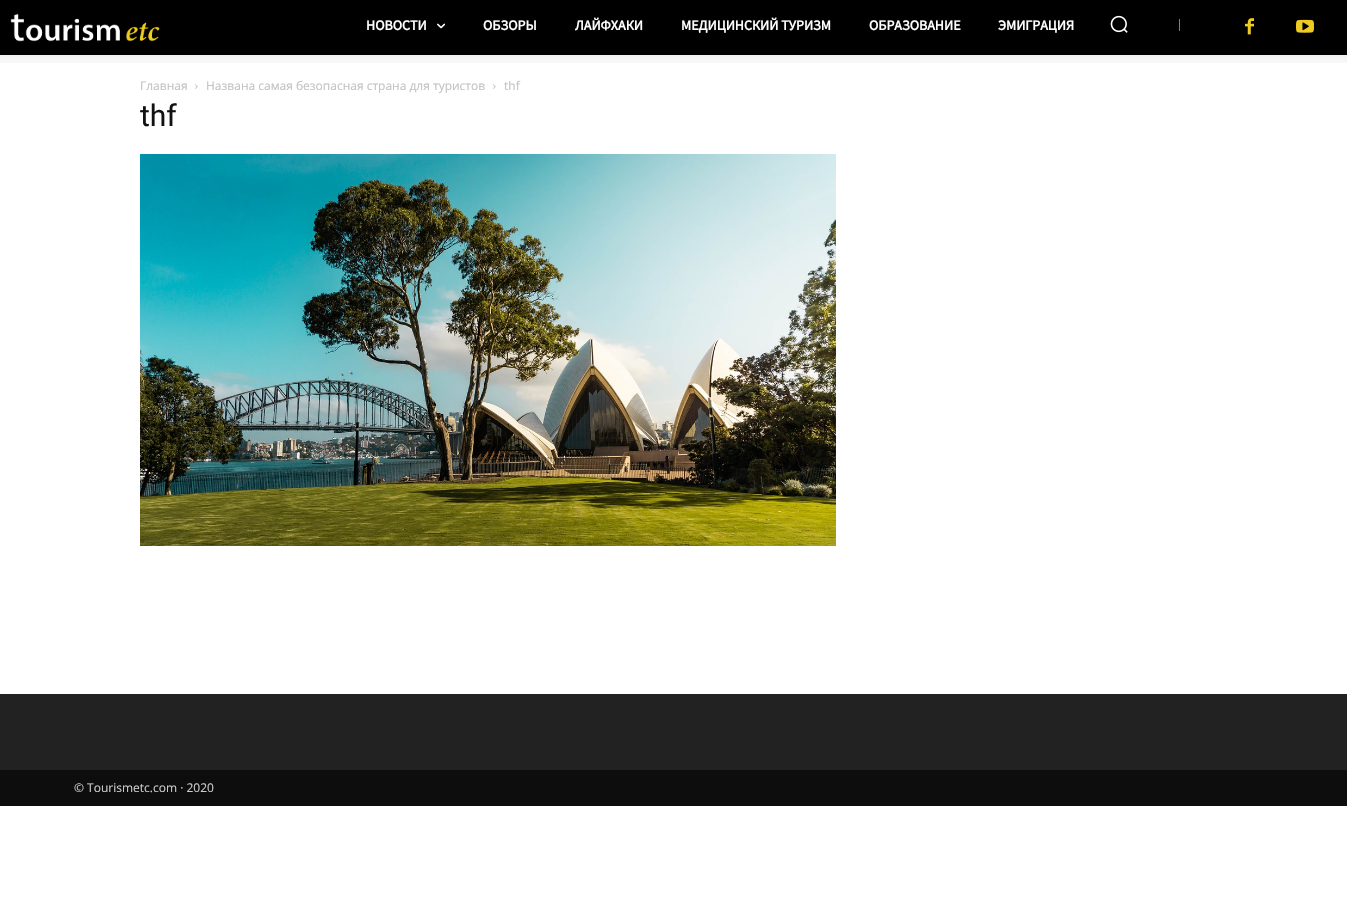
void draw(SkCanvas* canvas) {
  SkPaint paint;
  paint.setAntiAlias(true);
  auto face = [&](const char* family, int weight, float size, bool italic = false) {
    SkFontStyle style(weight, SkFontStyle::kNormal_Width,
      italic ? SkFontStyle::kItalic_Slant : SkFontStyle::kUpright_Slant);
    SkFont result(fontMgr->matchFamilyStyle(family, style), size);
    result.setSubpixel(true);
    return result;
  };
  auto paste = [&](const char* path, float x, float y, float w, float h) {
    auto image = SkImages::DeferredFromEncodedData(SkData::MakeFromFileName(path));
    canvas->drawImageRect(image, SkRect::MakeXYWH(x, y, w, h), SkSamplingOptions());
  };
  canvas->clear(0xffffffff);
  paint.setColor(0xff000000);
  canvas->drawRect(SkRect::MakeXYWH(0, 0, 1347, 55), paint);
  paste("img/6.png", 195, 84, 3, 5);
  paste("img/6.png", 493, 84, 3, 5);
  canvas->save();
  canvas->clipRect(SkRect::MakeXYWH(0, 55, 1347, 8));
  paint.setColor(0x1a000000);
  paint.setMaskFilter(SkMaskFilter::MakeBlur(kNormal_SkBlurStyle, 10));
  canvas->drawRect(SkRect::MakeXYWH(-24, 0, 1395, 55), paint);
  paint.setMaskFilter(nullptr);
  canvas->restore();
  paste("img/1.png", 10, 13, 150, 29);
  paste("img/2.png", 437, 23, 9, 6);
  paste("img/3.png", 1110, 15, 18, 18);
  paint.setColor(0xff808080);
  canvas->drawRect(SkRect::MakeXYWH(1179, 19, 1, 12), paint);
  paste("img/4.png", 1245, 18, 9, 17);
  paste("img/5.png", 1296, 19, 18, 14);
  paste("img/7.png", 140, 154, 696, 392);
  paint.setColor(0xff222222);
  canvas->drawRect(SkRect::MakeXYWH(0, 694, 1347, 76), paint);
  paint.setColor(0xff0d0d0d);
  canvas->drawRect(SkRect::MakeXYWH(0, 770, 1347, 36), paint);
  auto f0 = face("Source Sans Pro", 700, 14);
  paint.setColor(0xffffffff);
  {
    const struct { const char* s; float x, y; } items[] = {
      {"НОВОСТИ", 366, 30},
      {"ОБЗОРЫ", 483, 30},
      {"ЛАЙФХАКИ", 575, 30},
      {"МЕДИЦИНСКИЙ ТУРИЗМ", 681, 30},
      {"ОБРАЗОВАНИЕ", 869, 30},
      {"ЭМИГРАЦИЯ", 998, 30},
    };
    for (auto [s, x, y] : items) {
      canvas->drawString(s, x, y, f0, paint);
    }
  }
  auto f1 = face("Open Sans", 400, 12);
  paint.setColor(0xffc3c3c3);
  {
    const struct { const char* s; float x, y; } items[] = {
      {"Главная", 140, 90},
      {"Названа самая безопасная страна для туристов", 206, 90},
      {"thf", 504, 90},
    };
    for (auto [s, x, y] : items) {
      canvas->drawString(s, x, y, f1, paint);
    }
  }
  auto f2 = face("Roboto", 400, 30);
  paint.setColor(0xff111111);
  canvas->drawString("thf", 140, 126, f2, paint);
  paint.setColor(0xffcccccc);
  canvas->drawString("© Tourismetc.com · 2020", 74, 792, f1, paint);
}
